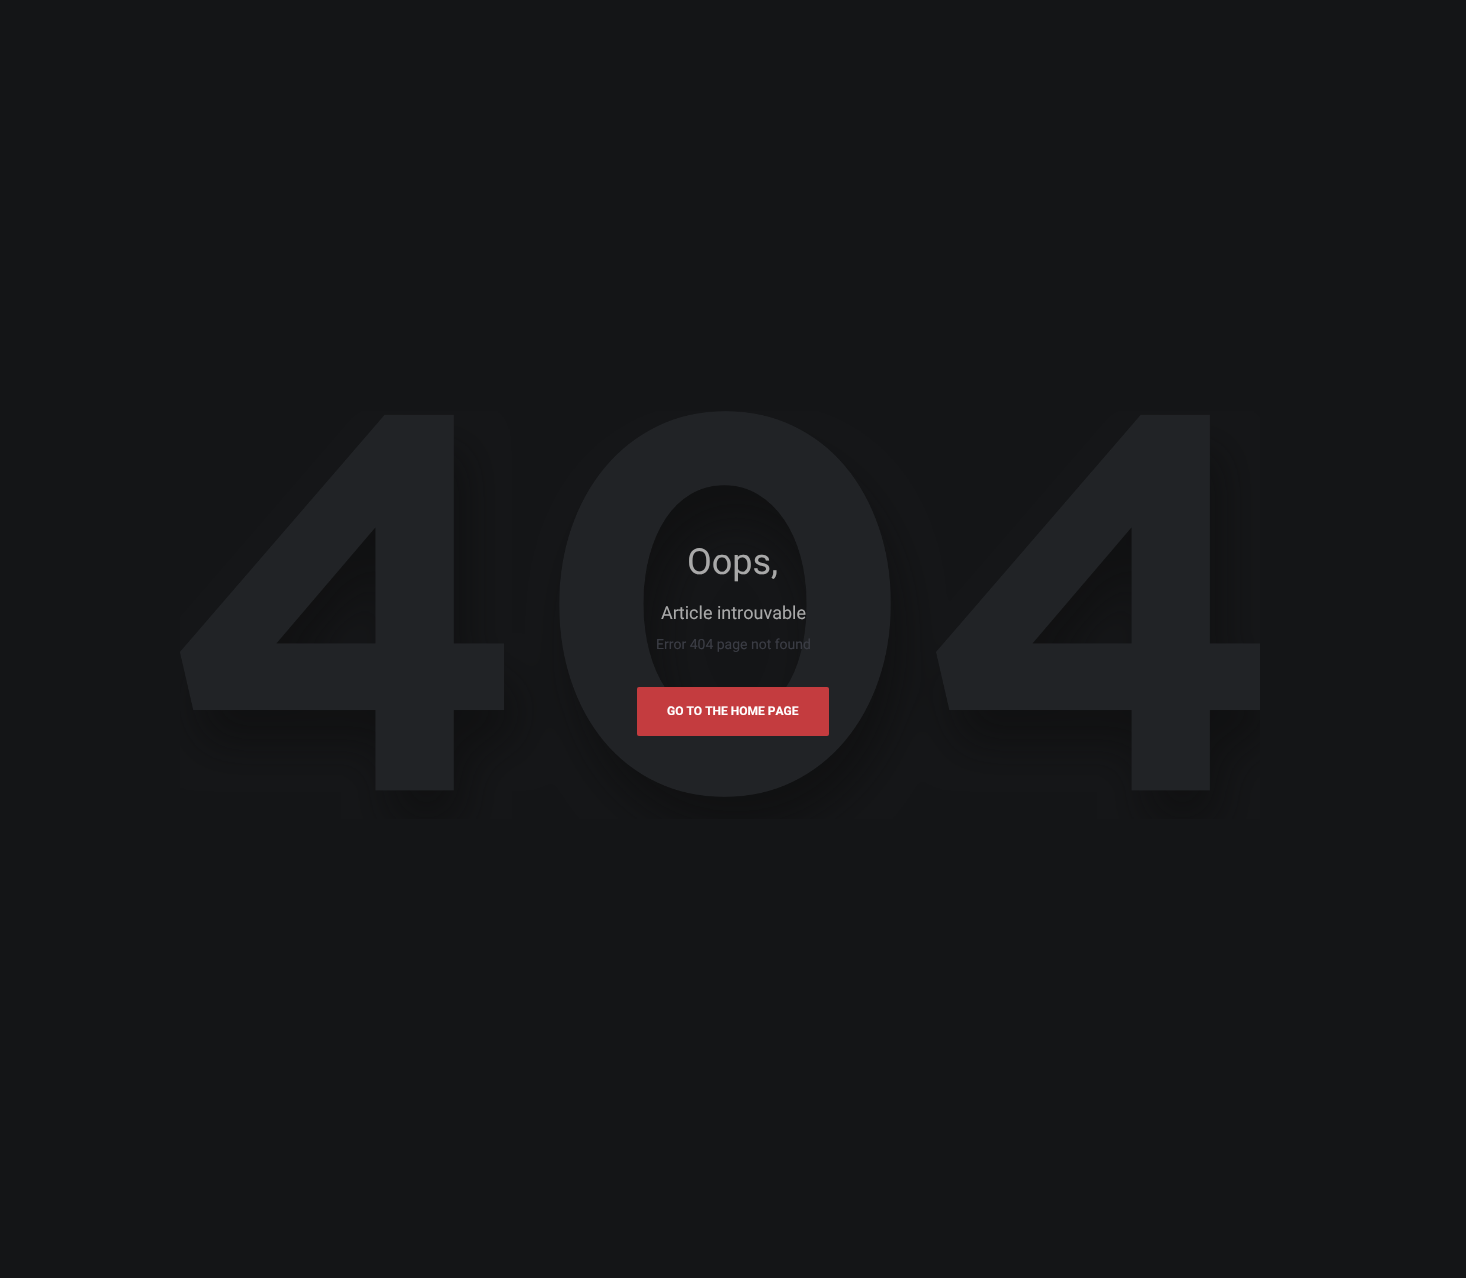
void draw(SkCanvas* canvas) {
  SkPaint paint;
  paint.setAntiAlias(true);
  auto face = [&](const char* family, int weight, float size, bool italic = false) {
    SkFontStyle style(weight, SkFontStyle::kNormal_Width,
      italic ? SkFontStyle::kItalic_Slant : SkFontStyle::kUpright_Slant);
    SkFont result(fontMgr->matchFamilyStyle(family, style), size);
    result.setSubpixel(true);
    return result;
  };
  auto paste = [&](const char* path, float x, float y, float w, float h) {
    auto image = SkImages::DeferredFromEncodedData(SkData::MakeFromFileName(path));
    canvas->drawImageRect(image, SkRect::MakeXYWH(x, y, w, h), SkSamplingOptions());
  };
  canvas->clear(0xff141517);
  paste("img/1.png", 180, 411, 1080, 408);
  paint.setColor(0xffc43c3f);
  canvas->drawRoundRect(SkRect::MakeXYWH(637, 687, 192, 49), 2, 2, paint);
  auto f0 = face("Roboto", 400, 36);
  paint.setColor(0xffa9a9a9);
  canvas->drawString("Oops,", 687, 574, f0, paint);
  auto f1 = face("Roboto", 400, 18);
  canvas->drawString("Article introuvable", 661, 619, f1, paint);
  auto f2 = face("Roboto", 400, 14);
  paint.setColor(0xff3a3c44);
  canvas->drawString("Error 404 page not found", 656, 649, f2, paint);
  auto f3 = face("Roboto", 700, 12);
  paint.setColor(0xffffffff);
  canvas->drawString("GO TO THE HOME PAGE", 667, 715, f3, paint);
}
